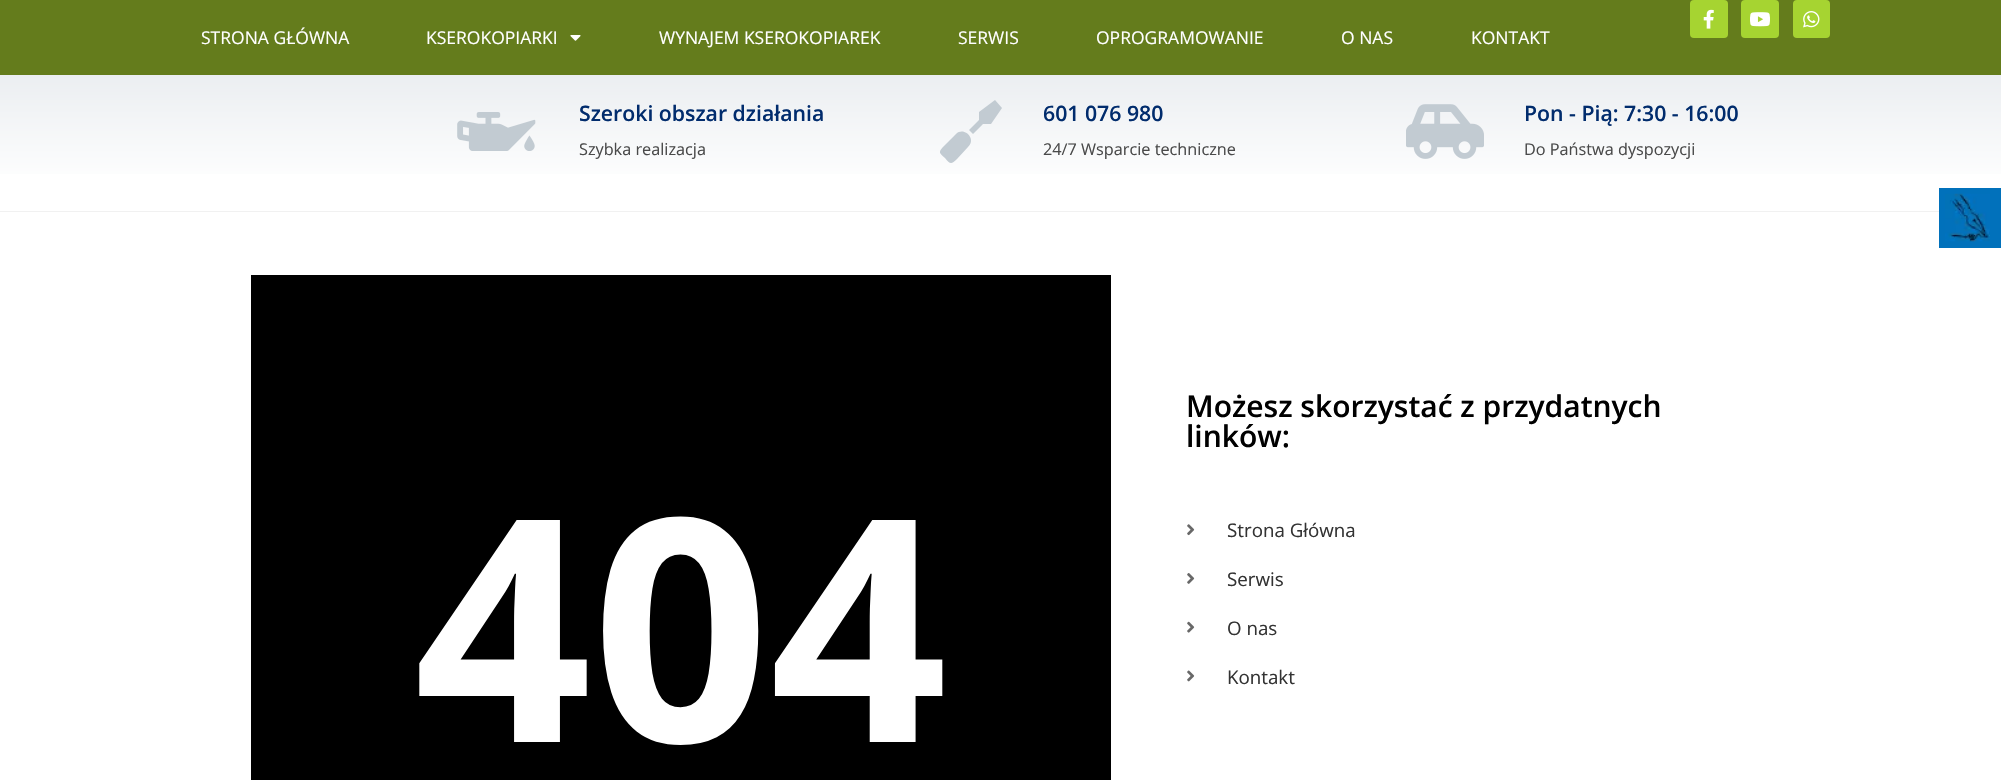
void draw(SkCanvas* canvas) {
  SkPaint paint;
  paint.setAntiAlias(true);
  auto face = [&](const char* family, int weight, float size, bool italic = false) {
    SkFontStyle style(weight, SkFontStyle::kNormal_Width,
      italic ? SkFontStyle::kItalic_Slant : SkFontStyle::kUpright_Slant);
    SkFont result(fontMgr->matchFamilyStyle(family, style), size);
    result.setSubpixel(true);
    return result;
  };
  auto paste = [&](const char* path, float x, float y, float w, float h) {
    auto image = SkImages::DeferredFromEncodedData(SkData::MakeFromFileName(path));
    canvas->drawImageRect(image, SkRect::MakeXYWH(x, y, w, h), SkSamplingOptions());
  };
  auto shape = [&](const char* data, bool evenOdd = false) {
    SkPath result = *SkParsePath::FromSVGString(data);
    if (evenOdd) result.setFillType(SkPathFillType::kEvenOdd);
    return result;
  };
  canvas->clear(0xffffffff);
  paint.setColor(0xfff1f1f1);
  canvas->drawRect(SkRect::MakeXYWH(0, 211, 1939, 1), paint);
  paint.setColor(0xff647c1c);
  canvas->drawRect(SkRect::MakeXYWH(0, 0, 2001, 75), paint);
  paste("img/1.png", 570, 35, 11, 6);
  paint.setColor(0xffa6d431);
  canvas->drawRoundRect(SkRect::MakeXYWH(1690, 0, 38, 38), 4, 4, paint);
  paste("img/2.png", 1703, 9, 11, 20);
  canvas->drawRoundRect(SkRect::MakeXYWH(1741, 0, 38, 38), 4, 4, paint);
  paste("img/3.png", 1750, 12, 20, 15);
  canvas->drawRoundRect(SkRect::MakeXYWH(1793, 0, 37, 38), 4, 4, paint);
  paste("img/4.png", 1803, 11, 17, 17);
  {
    const SkColor colors[] = {0xffebeef1, 0xffffffff};
    const float stops[] = {0, 1};
    const SkPoint ends[] = {{1001, 75}, {1001, 188}};
    paint.setShader(SkGradientShader::MakeLinear(ends, colors, stops, 2, SkTileMode::kClamp));
    paint.setAlpha(255);
  }
  canvas->drawRect(SkRect::MakeXYWH(0, 75, 2001, 99), paint);
  paste("img/5.png", 457, 112, 79, 39);
  paint.setShader(nullptr);
  paint.setColor(0xffc2cbd2);
  canvas->drawPath(shape("M995 100L1002 108L991 124H983L973 134L969 130L979 120V112ZM956 134C964 126 977 139 968 147L957 159C951 165 950 164 945 158C939 153 938 152 944 146Z"), paint);
  paste("img/6.png", 1406, 104, 78, 55);
  paint.setColor(0xff000000);
  canvas->drawRect(SkRect::MakeXYWH(251, 275, 860, 505), paint);
  paste("img/7.png", 1187, 524, 8, 12);
  paste("img/8.png", 1187, 573, 8, 11);
  paste("img/9.png", 1187, 621, 8, 12);
  paste("img/10.png", 1187, 670, 8, 12);
  paint.setColor(0xff0171bb);
  canvas->drawRect(SkRect::MakeXYWH(1939, 188, 62, 60), paint);
  paste("img/11.png", 1945, 193, 45, 49);
  auto f0 = face("Open Sans", 400, 17.5f);
  paint.setColor(0xffffffff);
  {
    const struct { const char* s; float x, y; } items[] = {
      {"STRONA GŁÓWNA", 201, 44},
      {"KSEROKOPIARKI", 426, 44},
      {"WYNAJEM KSEROKOPIAREK", 659, 44},
      {"SERWIS", 958, 44},
      {"OPROGRAMOWANIE", 1096, 44},
      {"O NAS", 1341, 44},
      {"KONTAKT", 1471, 44},
    };
    for (auto [s, x, y] : items) {
      canvas->drawString(s, x, y, f0, paint);
    }
  }
  auto f1 = face("Open Sans", 600, 21.25f);
  paint.setColor(0xff012c6d);
  canvas->drawString("Szeroki obszar działania", 579, 121, f1, paint);
  auto f2 = face("Open Sans", 400, 16.25f);
  paint.setColor(0xff4a4a4a);
  canvas->drawString("Szybka realizacja", 579, 155, f2, paint);
  paint.setColor(0xff012c6d);
  canvas->drawString("601 076 980", 1043, 121, f1, paint);
  paint.setColor(0xff4a4a4a);
  canvas->drawString("24/7 Wsparcie techniczne", 1043, 155, f2, paint);
  paint.setColor(0xff012c6d);
  canvas->drawString("Pon - Pią: 7:30 - 16:00", 1524, 121, f1, paint);
  paint.setColor(0xff4a4a4a);
  canvas->drawString("Do Państwa dyspozycji", 1524, 155, f2, paint);
  auto f3 = face("Open Sans", 700, 311);
  paint.setColor(0xffffffff);
  canvas->drawString("404", 414, 742, f3, paint);
  auto f4 = face("Open Sans", 600, 30);
  paint.setColor(0xff000000);
  canvas->drawString("Możesz skorzystać z przydatnych", 1186, 417, f4, paint);
  canvas->drawString("linków:", 1186, 447, f4, paint);
  auto f5 = face("Open Sans", 400, 18.75f);
  paint.setColor(0xff333333);
  {
    const struct { const char* s; float x, y; } items[] = {
      {"Strona Główna", 1227, 537},
      {"Serwis", 1227, 586},
      {"O nas", 1227, 635},
      {"Kontakt", 1227, 684},
    };
    for (auto [s, x, y] : items) {
      canvas->drawString(s, x, y, f5, paint);
    }
  }
}
